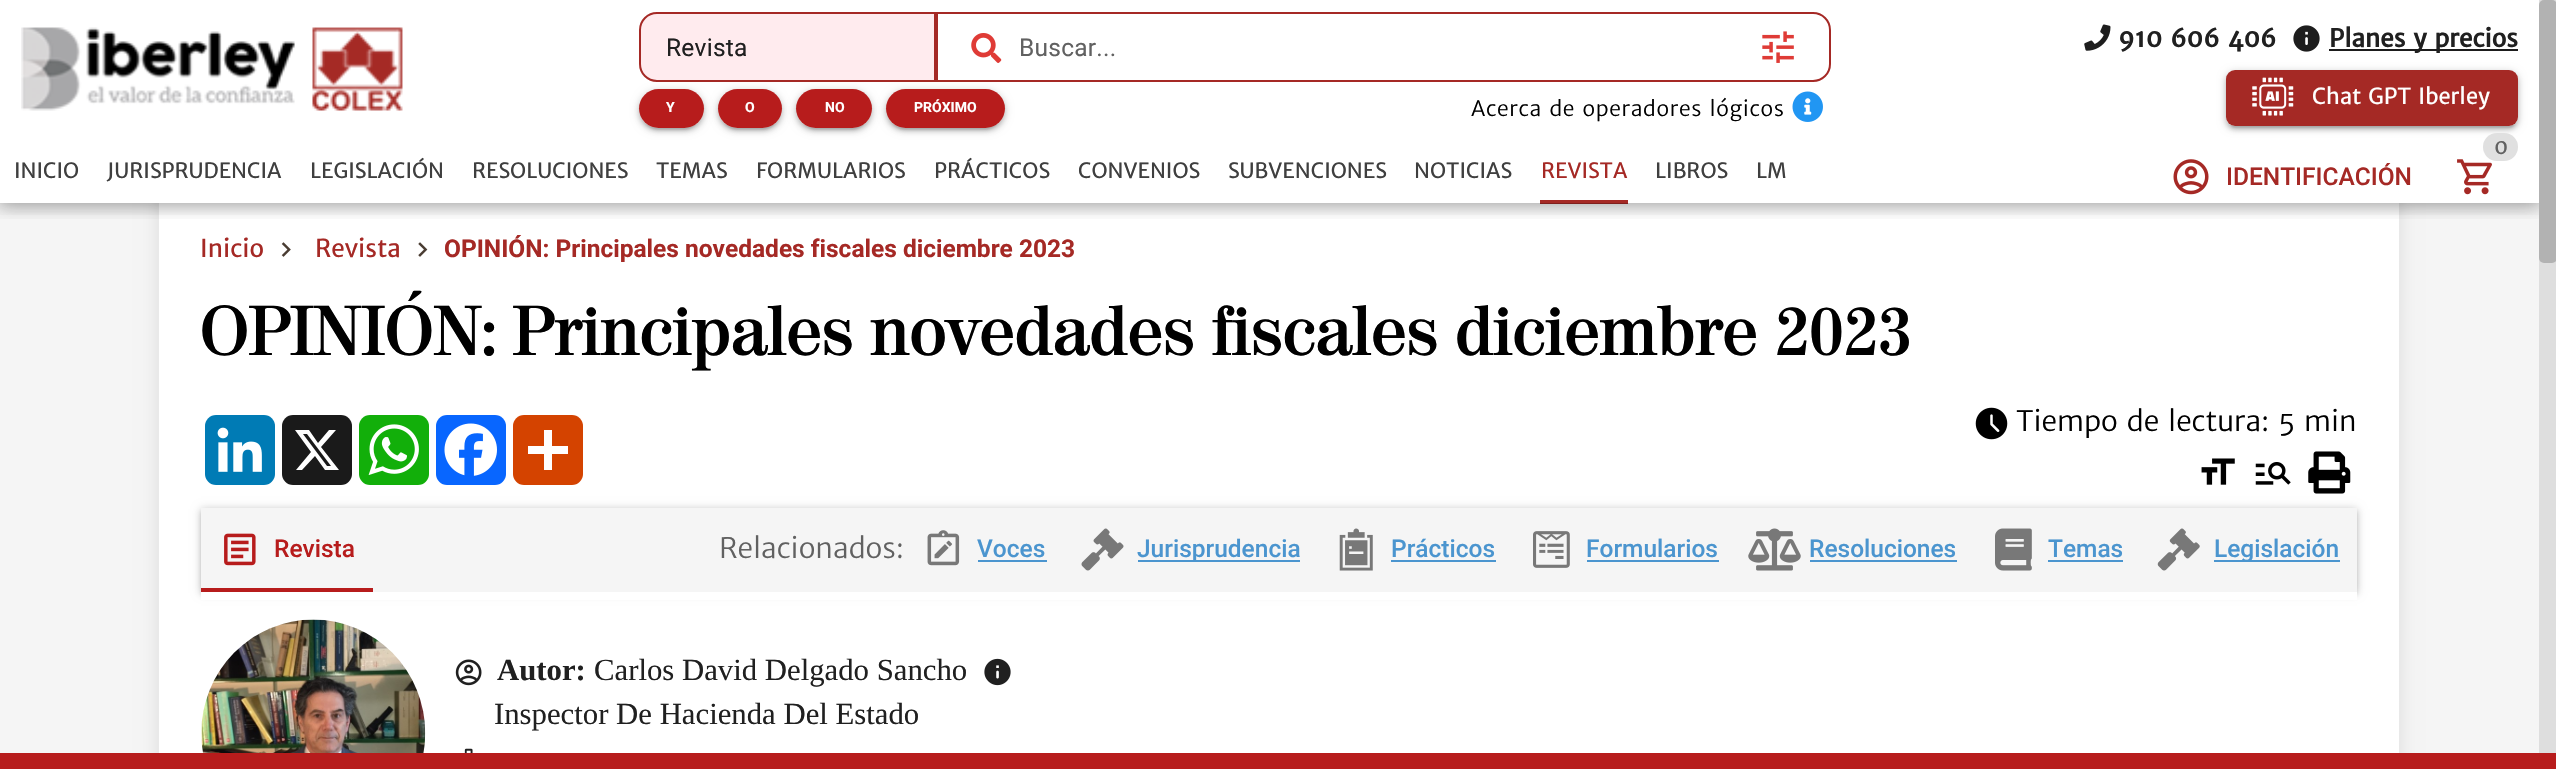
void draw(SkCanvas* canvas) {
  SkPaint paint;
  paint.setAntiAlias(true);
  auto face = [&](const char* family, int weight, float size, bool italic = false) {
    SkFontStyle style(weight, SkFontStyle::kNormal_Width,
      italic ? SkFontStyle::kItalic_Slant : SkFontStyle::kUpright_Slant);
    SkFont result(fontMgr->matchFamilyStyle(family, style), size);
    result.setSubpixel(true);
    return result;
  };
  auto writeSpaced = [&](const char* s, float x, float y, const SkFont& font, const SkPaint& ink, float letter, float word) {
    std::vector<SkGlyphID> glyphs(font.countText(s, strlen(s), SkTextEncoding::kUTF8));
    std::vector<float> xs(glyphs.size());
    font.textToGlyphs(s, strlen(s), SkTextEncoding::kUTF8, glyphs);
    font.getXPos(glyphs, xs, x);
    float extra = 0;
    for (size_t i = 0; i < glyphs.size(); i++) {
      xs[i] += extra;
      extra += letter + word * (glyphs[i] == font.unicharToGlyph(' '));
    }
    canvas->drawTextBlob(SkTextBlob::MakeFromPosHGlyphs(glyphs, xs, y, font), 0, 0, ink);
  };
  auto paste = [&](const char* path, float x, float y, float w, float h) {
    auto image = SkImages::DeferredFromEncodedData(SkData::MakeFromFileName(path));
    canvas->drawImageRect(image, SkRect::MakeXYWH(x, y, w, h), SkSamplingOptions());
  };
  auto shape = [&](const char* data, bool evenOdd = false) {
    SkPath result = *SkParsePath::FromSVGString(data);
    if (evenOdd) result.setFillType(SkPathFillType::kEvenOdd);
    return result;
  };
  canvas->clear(0xfff5f5f5);
  paint.setColor(0xffdedede);
  canvas->drawRect(SkRect::MakeXYWH(2539, 0, 17, 753), paint);
  paint.setColor(0x1a000000);
  paint.setMaskFilter(SkMaskFilter::MakeBlur(kNormal_SkBlurStyle, 9));
  canvas->drawRect(SkRect::MakeXYWH(159, 0, 2240, 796), paint);
  paint.setMaskFilter(nullptr);
  paint.setColor(0xffffffff);
  canvas->drawRect(SkRect::MakeXYWH(0, 0, 2539, 140), paint);
  paste("img/1.png", 21, 27, 382, 84);
  paint.setColor(0xffffebee);
  canvas->drawPath(shape("M657 13H935V81H657C647.5 81 640 73.5 640 64V30C640 20.5 647.5 13 657 13Z"), paint);
  paint.setStroke(true);
  paint.setStrokeWidth(2);
  paint.setColor(0xffa52925);
  canvas->drawPath(shape("M657 13H935V81H657C647.5 81 640 73.5 640 64V30C640 20.5 647.5 13 657 13Z"), paint);
  canvas->drawPath(shape("M937 13H1813C1822.5 13 1830 20.5 1830 30V64C1830 73.5 1822.5 81 1813 81H937Z"), paint);
  paste("img/2.png", 971, 33, 31, 30);
  paste("img/3.png", 1762, 31, 32, 32);
  paint.setStroke(false);
  paint.setColor(0xffb71c1c);
  canvas->drawRoundRect(SkRect::MakeXYWH(639, 89, 65, 39), 19.5f, 19.5f, paint);
  canvas->save();
  canvas->clipPath(shape("M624 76H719V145H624ZM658.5 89H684.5C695.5 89 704 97.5 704 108.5C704 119.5 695.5 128 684.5 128H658.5C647.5 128 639 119.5 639 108.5C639 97.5 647.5 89 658.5 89Z", true), true);
  paint.setColor(0x33000000);
  paint.setMaskFilter(SkMaskFilter::MakeBlur(kNormal_SkBlurStyle, 4.5f));
  canvas->drawRoundRect(SkRect::MakeXYWH(639, 91, 65, 39), 19.5f, 19.5f, paint);
  paint.setMaskFilter(nullptr);
  canvas->restore();
  paint.setColor(0xffb71c1c);
  canvas->drawRoundRect(SkRect::MakeXYWH(718, 89, 64, 39), 19.5f, 19.5f, paint);
  canvas->save();
  canvas->clipPath(shape("M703 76H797V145H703ZM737.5 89H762.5C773.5 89 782 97.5 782 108.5C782 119.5 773.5 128 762.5 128H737.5C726.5 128 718 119.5 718 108.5C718 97.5 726.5 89 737.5 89Z", true), true);
  paint.setColor(0x33000000);
  paint.setMaskFilter(SkMaskFilter::MakeBlur(kNormal_SkBlurStyle, 4.5f));
  canvas->drawRoundRect(SkRect::MakeXYWH(718, 91, 64, 39), 19.5f, 19.5f, paint);
  paint.setMaskFilter(nullptr);
  canvas->restore();
  paint.setColor(0xffb71c1c);
  canvas->drawRoundRect(SkRect::MakeXYWH(796, 89, 76, 39), 19.5f, 19.5f, paint);
  canvas->save();
  canvas->clipPath(shape("M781 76H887V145H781ZM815.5 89H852.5C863.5 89 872 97.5 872 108.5C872 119.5 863.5 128 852.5 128H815.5C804.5 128 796 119.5 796 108.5C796 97.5 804.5 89 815.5 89Z", true), true);
  paint.setColor(0x33000000);
  paint.setMaskFilter(SkMaskFilter::MakeBlur(kNormal_SkBlurStyle, 4.5f));
  canvas->drawRoundRect(SkRect::MakeXYWH(796, 91, 76, 39), 19.5f, 19.5f, paint);
  paint.setMaskFilter(nullptr);
  canvas->restore();
  paint.setColor(0xffb71c1c);
  canvas->drawRoundRect(SkRect::MakeXYWH(886, 89, 119, 39), 19.5f, 19.5f, paint);
  paste("img/4.png", 1792, 91, 31, 31);
  paste("img/5.png", 2084, 24, 27, 27);
  paste("img/6.png", 2293, 25, 27, 27);
  paint.setColor(0xff1d1d1d);
  canvas->drawRect(SkRect::MakeXYWH(2329, 49, 189, 2), paint);
  paint.setColor(0xffa52925);
  canvas->drawRoundRect(SkRect::MakeXYWH(2226, 70, 292, 56), 9, 9, paint);
  canvas->save();
  canvas->clipPath(shape("M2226 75H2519V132H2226ZM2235 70H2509C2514 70 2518 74 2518 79V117C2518 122 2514 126 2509 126H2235C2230 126 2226 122 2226 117V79C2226 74 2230 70 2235 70Z", true), true);
  paint.setColor(0x1f000000);
  paint.setMaskFilter(SkMaskFilter::MakeBlur(kNormal_SkBlurStyle, 1));
  canvas->drawRoundRect(SkRect::MakeXYWH(2230, 79, 285, 49), 5, 5, paint);
  paint.setMaskFilter(nullptr);
  canvas->restore();
  canvas->save();
  canvas->clipPath(shape("M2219 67H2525V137H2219ZM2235 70H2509C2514 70 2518 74 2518 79V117C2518 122 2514 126 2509 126H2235C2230 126 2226 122 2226 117V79C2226 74 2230 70 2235 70Z", true), true);
  paint.setColor(0x24000000);
  paint.setMaskFilter(SkMaskFilter::MakeBlur(kNormal_SkBlurStyle, 2));
  canvas->drawRoundRect(SkRect::MakeXYWH(2226, 74, 292, 56), 9, 9, paint);
  paint.setMaskFilter(nullptr);
  canvas->restore();
  canvas->save();
  canvas->clipPath(shape("M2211 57H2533V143H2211ZM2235 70H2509C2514 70 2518 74 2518 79V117C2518 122 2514 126 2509 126H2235C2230 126 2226 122 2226 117V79C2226 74 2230 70 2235 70Z", true), true);
  paint.setColor(0x33000000);
  paint.setMaskFilter(SkMaskFilter::MakeBlur(kNormal_SkBlurStyle, 4.5f));
  canvas->drawRoundRect(SkRect::MakeXYWH(2226, 72, 292, 56), 9, 9, paint);
  paint.setMaskFilter(nullptr);
  canvas->restore();
  paste("img/7.png", 2252, 77, 42, 39);
  canvas->save();
  canvas->clipPath(shape("M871 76H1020V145H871ZM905.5 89H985.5C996.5 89 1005 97.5 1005 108.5C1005 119.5 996.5 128 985.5 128H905.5C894.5 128 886 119.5 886 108.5C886 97.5 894.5 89 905.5 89Z", true), true);
  paint.setMaskFilter(SkMaskFilter::MakeBlur(kNormal_SkBlurStyle, 4.5f));
  canvas->drawRoundRect(SkRect::MakeXYWH(886, 91, 119, 39), 19.5f, 19.5f, paint);
  paint.setMaskFilter(nullptr);
  canvas->restore();
  {
    const struct { float x, y, w, h; SkColor color; } items[] = {
      {0, 140, 2539, 63, 0xffffffff},
      {159, 203, 2240, 550, 0xffffffff},
      {1540, 200, 88, 4, 0xffa52925},
    };
    for (auto [x, y, w, h, color] : items) {
      paint.setColor(color);
      canvas->drawRect(SkRect::MakeXYWH(x, y, w, h), paint);
    }
  }
  paste("img/8.png", 2457, 159, 35, 36);
  paint.setColor(0xffe0e0e0);
  canvas->drawRoundRect(SkRect::MakeXYWH(2483, 133, 35, 28), 14, 14, paint);
  paste("img/9.png", 2173, 159, 36, 36);
  paint.setColor(0xffb2b2b2);
  canvas->drawRoundRect(SkRect::MakeXYWH(2539, 0, 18, 263), 5, 5, paint);
  canvas->save();
  canvas->clipRect(SkRect::MakeXYWH(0, 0, 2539, 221));
  canvas->clipRect(SkRect::MakeXYWH(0, 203, 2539, 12));
  paint.setColor(0x3d000000);
  paint.setMaskFilter(SkMaskFilter::MakeBlur(kNormal_SkBlurStyle, 9));
  canvas->drawRect(SkRect::MakeXYWH(0, 0, 2539, 203), paint);
  paint.setMaskFilter(nullptr);
  canvas->restore();
  canvas->save();
  canvas->clipRect(SkRect::MakeXYWH(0, 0, 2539, 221));
  canvas->clipRect(SkRect::MakeXYWH(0, 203, 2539, 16));
  paint.setColor(0x33000000);
  paint.setMaskFilter(SkMaskFilter::MakeBlur(kNormal_SkBlurStyle, 9));
  canvas->drawRect(SkRect::MakeXYWH(-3, -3, 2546, 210), paint);
  paint.setMaskFilter(nullptr);
  canvas->restore();
  canvas->save();
  canvas->clipPath(shape("M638 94H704V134H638ZM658.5 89H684.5C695.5 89 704 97.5 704 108.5C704 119.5 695.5 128 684.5 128H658.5C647.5 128 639 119.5 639 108.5C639 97.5 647.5 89 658.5 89Z", true), true);
  paint.setColor(0x1f000000);
  paint.setMaskFilter(SkMaskFilter::MakeBlur(kNormal_SkBlurStyle, 1));
  canvas->drawRoundRect(SkRect::MakeXYWH(642, 98, 58, 32), 16, 16, paint);
  paint.setMaskFilter(nullptr);
  canvas->restore();
  canvas->save();
  canvas->clipPath(shape("M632 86H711V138H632ZM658.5 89H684.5C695.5 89 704 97.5 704 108.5C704 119.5 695.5 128 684.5 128H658.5C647.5 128 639 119.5 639 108.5C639 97.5 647.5 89 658.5 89Z", true), true);
  paint.setColor(0x24000000);
  paint.setMaskFilter(SkMaskFilter::MakeBlur(kNormal_SkBlurStyle, 2));
  canvas->drawRoundRect(SkRect::MakeXYWH(639, 93, 65, 38), 19, 19, paint);
  paint.setMaskFilter(nullptr);
  canvas->restore();
  canvas->save();
  canvas->clipPath(shape("M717 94H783V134H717ZM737.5 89H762.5C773.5 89 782 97.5 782 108.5C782 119.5 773.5 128 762.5 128H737.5C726.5 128 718 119.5 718 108.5C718 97.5 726.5 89 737.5 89Z", true), true);
  paint.setColor(0x1f000000);
  paint.setMaskFilter(SkMaskFilter::MakeBlur(kNormal_SkBlurStyle, 1));
  canvas->drawRoundRect(SkRect::MakeXYWH(721, 98, 58, 32), 16, 16, paint);
  paint.setMaskFilter(nullptr);
  canvas->restore();
  canvas->save();
  canvas->clipPath(shape("M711 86H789V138H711ZM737.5 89H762.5C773.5 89 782 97.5 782 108.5C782 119.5 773.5 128 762.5 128H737.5C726.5 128 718 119.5 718 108.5C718 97.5 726.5 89 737.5 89Z", true), true);
  paint.setColor(0x24000000);
  paint.setMaskFilter(SkMaskFilter::MakeBlur(kNormal_SkBlurStyle, 2));
  canvas->drawRoundRect(SkRect::MakeXYWH(718, 93, 64, 38), 19, 19, paint);
  paint.setMaskFilter(nullptr);
  canvas->restore();
  canvas->save();
  canvas->clipPath(shape("M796 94H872V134H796ZM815.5 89H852.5C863.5 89 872 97.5 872 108.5C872 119.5 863.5 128 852.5 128H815.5C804.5 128 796 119.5 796 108.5C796 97.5 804.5 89 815.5 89Z", true), true);
  paint.setColor(0x1f000000);
  paint.setMaskFilter(SkMaskFilter::MakeBlur(kNormal_SkBlurStyle, 1));
  canvas->drawRoundRect(SkRect::MakeXYWH(800, 98, 68, 32), 16, 16, paint);
  paint.setMaskFilter(nullptr);
  canvas->restore();
  canvas->save();
  canvas->clipPath(shape("M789 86H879V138H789ZM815.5 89H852.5C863.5 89 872 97.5 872 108.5C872 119.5 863.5 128 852.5 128H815.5C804.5 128 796 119.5 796 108.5C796 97.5 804.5 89 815.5 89Z", true), true);
  paint.setColor(0x24000000);
  paint.setMaskFilter(SkMaskFilter::MakeBlur(kNormal_SkBlurStyle, 2));
  canvas->drawRoundRect(SkRect::MakeXYWH(796, 93, 76, 38), 19, 19, paint);
  paint.setMaskFilter(nullptr);
  canvas->restore();
  canvas->save();
  canvas->clipPath(shape("M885 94H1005V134H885ZM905.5 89H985.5C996.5 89 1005 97.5 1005 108.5C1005 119.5 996.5 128 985.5 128H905.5C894.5 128 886 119.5 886 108.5C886 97.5 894.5 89 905.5 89Z", true), true);
  paint.setColor(0x1f000000);
  paint.setMaskFilter(SkMaskFilter::MakeBlur(kNormal_SkBlurStyle, 1));
  canvas->drawRoundRect(SkRect::MakeXYWH(889, 98, 112, 32), 16, 16, paint);
  paint.setMaskFilter(nullptr);
  canvas->restore();
  canvas->save();
  canvas->clipPath(shape("M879 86H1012V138H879ZM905.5 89H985.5C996.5 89 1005 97.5 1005 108.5C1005 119.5 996.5 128 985.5 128H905.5C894.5 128 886 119.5 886 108.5C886 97.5 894.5 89 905.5 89Z", true), true);
  paint.setColor(0x24000000);
  paint.setMaskFilter(SkMaskFilter::MakeBlur(kNormal_SkBlurStyle, 2));
  canvas->drawRoundRect(SkRect::MakeXYWH(886, 93, 119, 38), 19, 19, paint);
  paint.setMaskFilter(nullptr);
  canvas->restore();
  paste("img/10.png", 281, 242, 10, 15);
  paste("img/11.png", 418, 242, 10, 15);
  paint.setColor(0xff007bb5);
  canvas->drawRoundRect(SkRect::MakeXYWH(205, 415, 70, 70), 11, 11, paint);
  paste("img/12.png", 217, 427, 45, 45);
  paint.setColor(0xff1a1a1a);
  canvas->drawRoundRect(SkRect::MakeXYWH(282, 415, 70, 70), 11, 11, paint);
  paint.setColor(0xffffffff);
  canvas->drawPath(shape("M329 430H336L321 447L339 470H325L315 456L302 470H296L311 452L295 430H309L318 443ZM327 466H331L307 434H303Z"), paint);
  paint.setColor(0xff12af0a);
  canvas->drawRoundRect(SkRect::MakeXYWH(359, 415, 70, 70), 11, 11, paint);
  paste("img/13.png", 368, 424, 51, 51);
  paint.setColor(0xff0866ff);
  canvas->drawRoundRect(SkRect::MakeXYWH(436, 415, 70, 70), 11, 11, paint);
  paste("img/14.png", 444, 423, 53, 53);
  paint.setColor(0xffd44300);
  canvas->drawRoundRect(SkRect::MakeXYWH(513, 415, 70, 70), 11, 11, paint);
  paint.setColor(0xffffffff);
  canvas->drawRect(SkRect::MakeXYWH(544, 430, 8, 40), paint);
  canvas->drawRect(SkRect::MakeXYWH(528, 446, 40, 8), paint);
  paste("img/15.png", 1975, 407, 33, 33);
  paste("img/16.png", 2201, 458, 34, 27);
  paste("img/17.png", 2255, 462, 36, 23);
  paste("img/18.png", 2308, 451, 43, 43);
  paint.setColor(0x24000000);
  paint.setMaskFilter(SkMaskFilter::MakeBlur(kNormal_SkBlurStyle, 2));
  canvas->drawRect(SkRect::MakeXYWH(201, 511, 2156, 84), paint);
  paint.setMaskFilter(nullptr);
  paint.setColor(0x33000000);
  paint.setMaskFilter(SkMaskFilter::MakeBlur(kNormal_SkBlurStyle, 4.5f));
  canvas->drawRect(SkRect::MakeXYWH(201, 509, 2156, 84), paint);
  paint.setMaskFilter(nullptr);
  paint.setColor(0xfff5f5f5);
  canvas->drawRect(SkRect::MakeXYWH(201, 508, 2156, 84), paint);
  paste("img/19.png", 224, 533, 32, 33);
  paint.setColor(0xffb71c1c);
  canvas->drawRect(SkRect::MakeXYWH(201, 588, 172, 4), paint);
  paste("img/20.png", 927, 530, 33, 36);
  paint.setColor(0xff4b95cf);
  canvas->drawRect(SkRect::MakeXYWH(978, 560, 69, 2), paint);
  paste("img/21.png", 1081, 528, 43, 43);
  canvas->drawRect(SkRect::MakeXYWH(1138, 560, 162, 2), paint);
  paste("img/22.png", 1339, 528, 34, 43);
  canvas->drawRect(SkRect::MakeXYWH(1391, 560, 105, 2), paint);
  paste("img/23.png", 1533, 531, 37, 37);
  canvas->drawRect(SkRect::MakeXYWH(1587, 560, 132, 2), paint);
  paste("img/24.png", 1748, 528, 53, 43);
  canvas->drawRect(SkRect::MakeXYWH(1810, 560, 147, 2), paint);
  paste("img/25.png", 1995, 528, 37, 43);
  canvas->drawRect(SkRect::MakeXYWH(2048, 560, 75, 2), paint);
  paste("img/26.png", 2157, 528, 43, 43);
  canvas->drawRect(SkRect::MakeXYWH(2214, 560, 126, 2), paint);
  paint.setColor(0xffffffff);
  canvas->drawRect(SkRect::MakeXYWH(201, 592, 2156, 8), paint);
  paste("img/27.png", 201, 619, 225, 134);
  paste("img/28.png", 455, 659, 27, 27);
  paste("img/29.png", 984, 658, 27, 28);
  paste("img/30.png", 464, 748, 9, 5);
  paint.setColor(0xffb71c1c);
  canvas->drawRect(SkRect::MakeXYWH(0, 753, 2556, 16), paint);
  auto f0 = face("Roboto", 400, 24.5f);
  paint.setColor(0xff202020);
  writeSpaced("Revista", 666, 56, f0, paint, 0.25f, 0);
  paint.setColor(0xff616161);
  writeSpaced("Buscar...", 1019, 56, f0, paint, 0.25f, 0);
  auto f1 = face("Roboto", 700, 14);
  paint.setColor(0xffffffff);
  {
    const struct { const char* s; float x, y; } items[] = {
      {"Y", 666, 112},
      {"O", 745, 112},
      {"NO", 825, 112},
      {"PRÓXIMO", 914, 112},
    };
    for (auto [s, x, y] : items) {
      canvas->drawString(s, x, y, f1, paint);
    }
  }
  auto f2 = face("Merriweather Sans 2", 400, 21);
  paint.setColor(0xff000000);
  writeSpaced("Acerca de operadores lógicos", 1471, 116, f2, paint, 0.7f, 0);
  auto f3 = face("Merriweather Sans", 700, 24.5f);
  paint.setColor(0xff202020);
  canvas->drawString("910 606 406", 2118, 47, f3, paint);
  canvas->drawString("Planes y precios", 2329, 47, f3, paint);
  auto f4 = face("Merriweather Sans", 400, 22);
  paint.setColor(0xffffffff);
  canvas->drawString("Chat GPT Iberley", 2312, 104, f4, paint);
  auto f5 = face("Merriweather Sans", 400, 21);
  paint.setColor(0xff3f3f3f);
  {
    const struct { const char* s; float x, y; } items[] = {
      {"INICIO", 14, 178},
      {"JURISPRUDENCIA", 107, 178},
      {"LEGISLACIÓN", 310, 178},
      {"RESOLUCIONES", 472, 178},
      {"TEMAS", 656, 178},
      {"FORMULARIOS", 756, 178},
      {"PRÁCTICOS", 934, 178},
      {"CONVENIOS", 1078, 178},
      {"SUBVENCIONES", 1228, 178},
      {"NOTICIAS", 1414, 178},
    };
    for (auto [s, x, y] : items) {
      canvas->drawString(s, x, y, f5, paint);
    }
  }
  paint.setColor(0xffa52925);
  canvas->drawString("REVISTA", 1541, 178, f5, paint);
  paint.setColor(0xff3f3f3f);
  canvas->drawString("LIBROS", 1655, 178, f5, paint);
  canvas->drawString("LM", 1756, 178, f5, paint);
  paint.setColor(0xff616161);
  canvas->drawString("0", 2494, 154, f5, paint);
  auto f6 = face("Roboto", 500, 24.5f);
  paint.setColor(0xffa52925);
  canvas->drawString("IDENTIFICACIÓN", 2226, 185, f6, paint);
  auto f7 = face("Merriweather Sans", 400, 24.5f);
  canvas->drawString("Inicio", 200, 257, f7, paint);
  canvas->drawString("Revista", 315, 257, f7, paint);
  auto f8 = face("Roboto", 700, 24.5f);
  canvas->drawString("OPINIÓN: Principales novedades fiscales diciembre 2023", 444, 257, f8, paint);
  auto f9 = face("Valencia", 700, 68.25f);
  paint.setColor(0xff000000);
  canvas->drawString("OPINIÓN: Principales novedades fiscales diciembre 2023", 200, 355, f9, paint);
  auto f10 = face("Merriweather Sans 2", 400, 28);
  canvas->drawString("Tiempo de lectura: 5 min", 2016, 431, f10, paint);
  paint.setColor(0xffb71c1c);
  canvas->drawString("Revista", 274, 557, f6, paint);
  paint.setColor(0xff616161);
  canvas->drawString("Relacionados:", 719, 558, f10, paint);
  paint.setColor(0xff4b95cf);
  {
    const struct { const char* s; float x, y; } items[] = {
      {"Voces", 977, 557},
      {"Jurisprudencia", 1137, 557},
      {"Prácticos", 1391, 557},
      {"Formularios", 1586, 557},
      {"Resoluciones", 1809, 557},
      {"Temas", 2048, 557},
      {"Legislación", 2214, 557},
    };
    for (auto [s, x, y] : items) {
      canvas->drawString(s, x, y, f6, paint);
    }
  }
  auto f11 = face("Liberation Serif", 700, 30.75f);
  paint.setColor(0xff202020);
  canvas->drawString("Autor:", 497, 680, f11, paint);
  auto f12 = face("Liberation Serif", 400, 30.75f);
  canvas->drawString("Carlos David Delgado Sancho", 594, 680, f12, paint);
  canvas->drawString("Inspector De Hacienda Del Estado", 494, 724, f12, paint);
}
